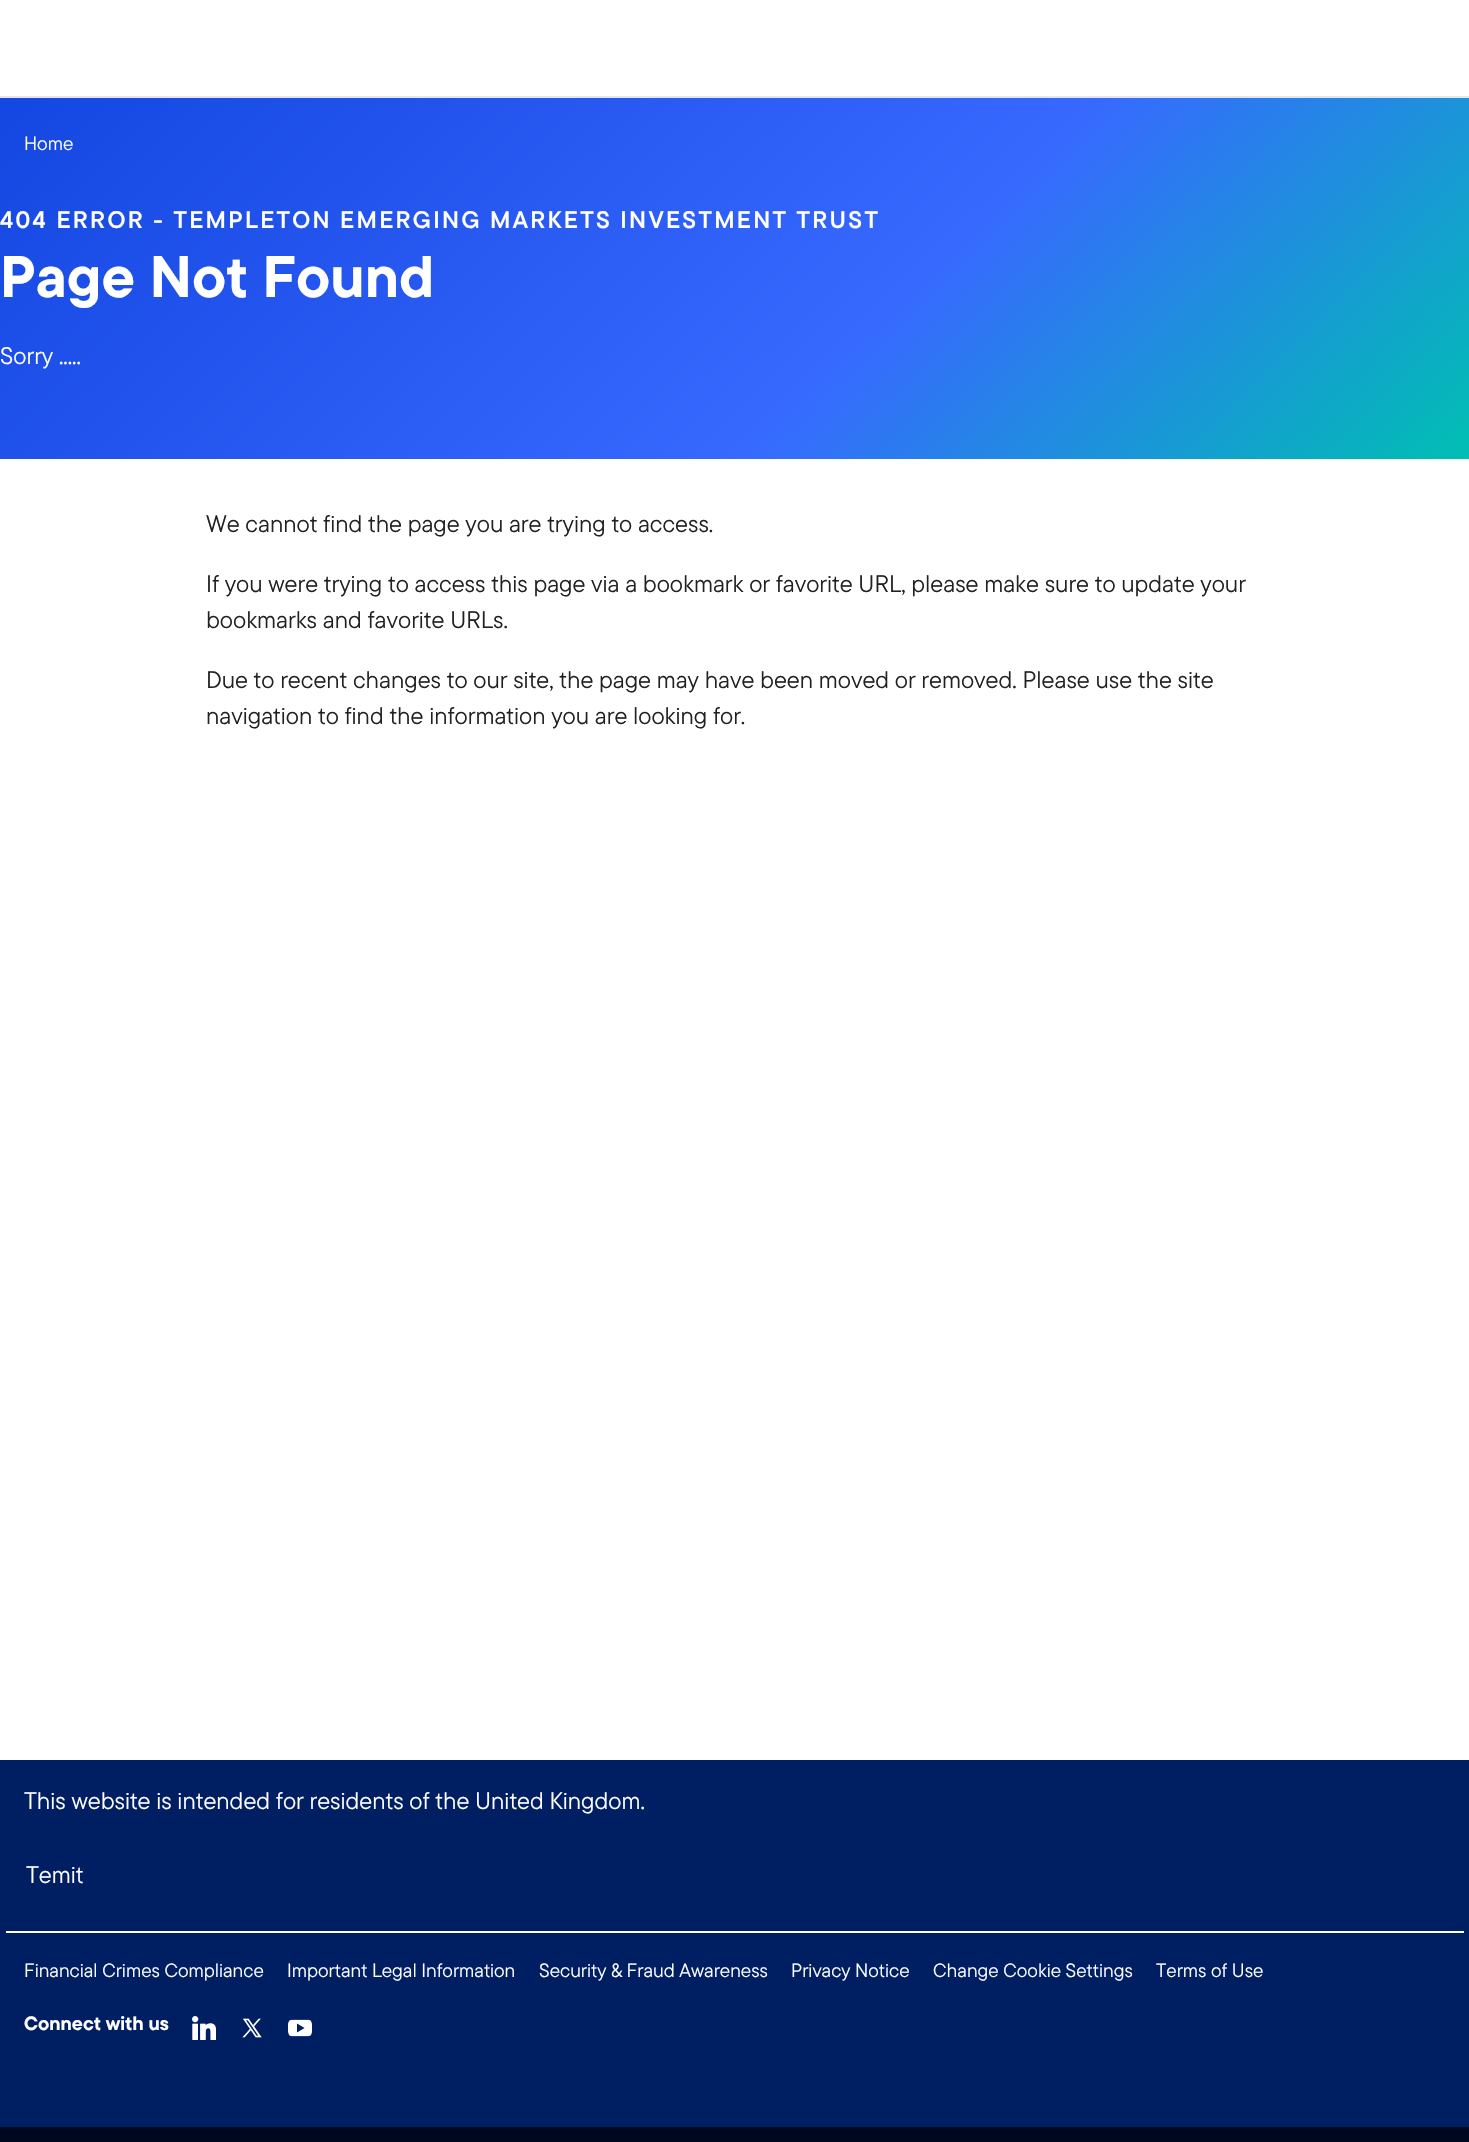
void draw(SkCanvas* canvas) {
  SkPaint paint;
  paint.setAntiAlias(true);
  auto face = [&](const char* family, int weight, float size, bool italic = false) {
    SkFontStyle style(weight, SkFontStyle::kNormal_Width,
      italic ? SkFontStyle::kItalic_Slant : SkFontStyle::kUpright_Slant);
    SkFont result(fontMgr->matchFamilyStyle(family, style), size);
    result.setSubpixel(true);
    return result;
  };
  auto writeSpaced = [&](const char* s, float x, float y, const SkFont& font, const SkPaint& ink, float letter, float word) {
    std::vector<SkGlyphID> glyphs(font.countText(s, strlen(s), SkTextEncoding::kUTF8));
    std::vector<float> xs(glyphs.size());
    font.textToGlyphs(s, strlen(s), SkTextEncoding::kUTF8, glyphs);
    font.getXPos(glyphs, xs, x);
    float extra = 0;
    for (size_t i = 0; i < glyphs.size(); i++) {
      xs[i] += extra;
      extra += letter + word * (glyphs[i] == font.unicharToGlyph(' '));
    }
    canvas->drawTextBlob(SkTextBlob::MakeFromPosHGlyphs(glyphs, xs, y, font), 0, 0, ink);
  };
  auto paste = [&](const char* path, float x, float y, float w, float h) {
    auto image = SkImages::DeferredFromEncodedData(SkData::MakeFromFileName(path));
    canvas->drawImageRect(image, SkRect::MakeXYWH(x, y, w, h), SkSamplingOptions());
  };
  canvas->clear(0xffffffff);
  paint.setColor(0xffe6e6e6);
  canvas->drawRect(SkRect::MakeXYWH(0, 96, 1469, 2), paint);
  {
    const SkColor colors[] = {0xff1446e1, 0xff3769ff, 0xff00bfb3};
    const float stops[] = {0, 0.6f, 1};
    const SkPoint ends[] = {{285, -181}, {1185, 738}};
    paint.setShader(SkGradientShader::MakeLinear(ends, colors, stops, 3, SkTileMode::kClamp));
    paint.setAlpha(255);
  }
  canvas->drawRect(SkRect::MakeXYWH(0, 98, 1469, 361), paint);
  paint.setShader(nullptr);
  paint.setColor(0xff001e62);
  canvas->drawRect(SkRect::MakeXYWH(0, 1760, 1469, 367), paint);
  paint.setColor(0xffffffff);
  canvas->drawRect(SkRect::MakeXYWH(6, 1931, 1458, 2), paint);
  paste("img/1.png", 192, 2016, 24, 24);
  paste("img/2.png", 242, 2018, 20, 20);
  paste("img/3.png", 288, 2019, 24, 18);
  paint.setColor(0xff00081f);
  canvas->drawRect(SkRect::MakeXYWH(0, 2127, 1469, 15), paint);
  auto f0 = face("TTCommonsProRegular", 400, 19.25f);
  paint.setColor(0xffffffff);
  canvas->drawString("Home", 24, 150, f0, paint);
  auto f1 = face("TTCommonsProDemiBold", 600, 24);
  writeSpaced("404 ERROR - TEMPLETON EMERGING MARKETS INVESTMENT TRUST", 0, 228, f1, paint, 2.28f, 0);
  auto f2 = face("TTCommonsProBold", 700, 58.5f);
  canvas->drawString("Page Not Found", 0, 297, f2, paint);
  auto f3 = face("TTCommonsProRegular", 400, 24);
  canvas->drawString("Sorry .....", 0, 364, f3, paint);
  paint.setColor(0xff212121);
  {
    const struct { const char* s; float x, y; } items[] = {
      {"We cannot find the page you are trying to access.", 206, 532},
      {"If you were trying to access this page via a bookmark or favorite URL, please make sure to update your", 206, 592},
      {"bookmarks and favorite URLs.", 206, 628},
      {"Due to recent changes to our site, the page may have been moved or removed. Please use the site", 206, 688},
      {"navigation to find the information you are looking for.", 206, 724},
    };
    for (auto [s, x, y] : items) {
      canvas->drawString(s, x, y, f3, paint);
    }
  }
  paint.setColor(0xffffffff);
  canvas->drawString("This website is intended for residents of the United Kingdom.", 24, 1809, f3, paint);
  canvas->drawString("Temit", 26, 1883, f3, paint);
  {
    const struct { const char* s; float x, y; } items[] = {
      {"Financial Crimes Compliance", 24, 1977},
      {"Important Legal Information", 287, 1977},
      {"Security & Fraud Awareness", 539, 1977},
      {"Privacy Notice", 791, 1977},
      {"Change Cookie Settings", 933, 1977},
      {"Terms of Use", 1156, 1977},
    };
    for (auto [s, x, y] : items) {
      canvas->drawString(s, x, y, f0, paint);
    }
  }
  auto f4 = face("TTCommonsProBold", 700, 19.25f);
  canvas->drawString("Connect with us", 24, 2030, f4, paint);
}
